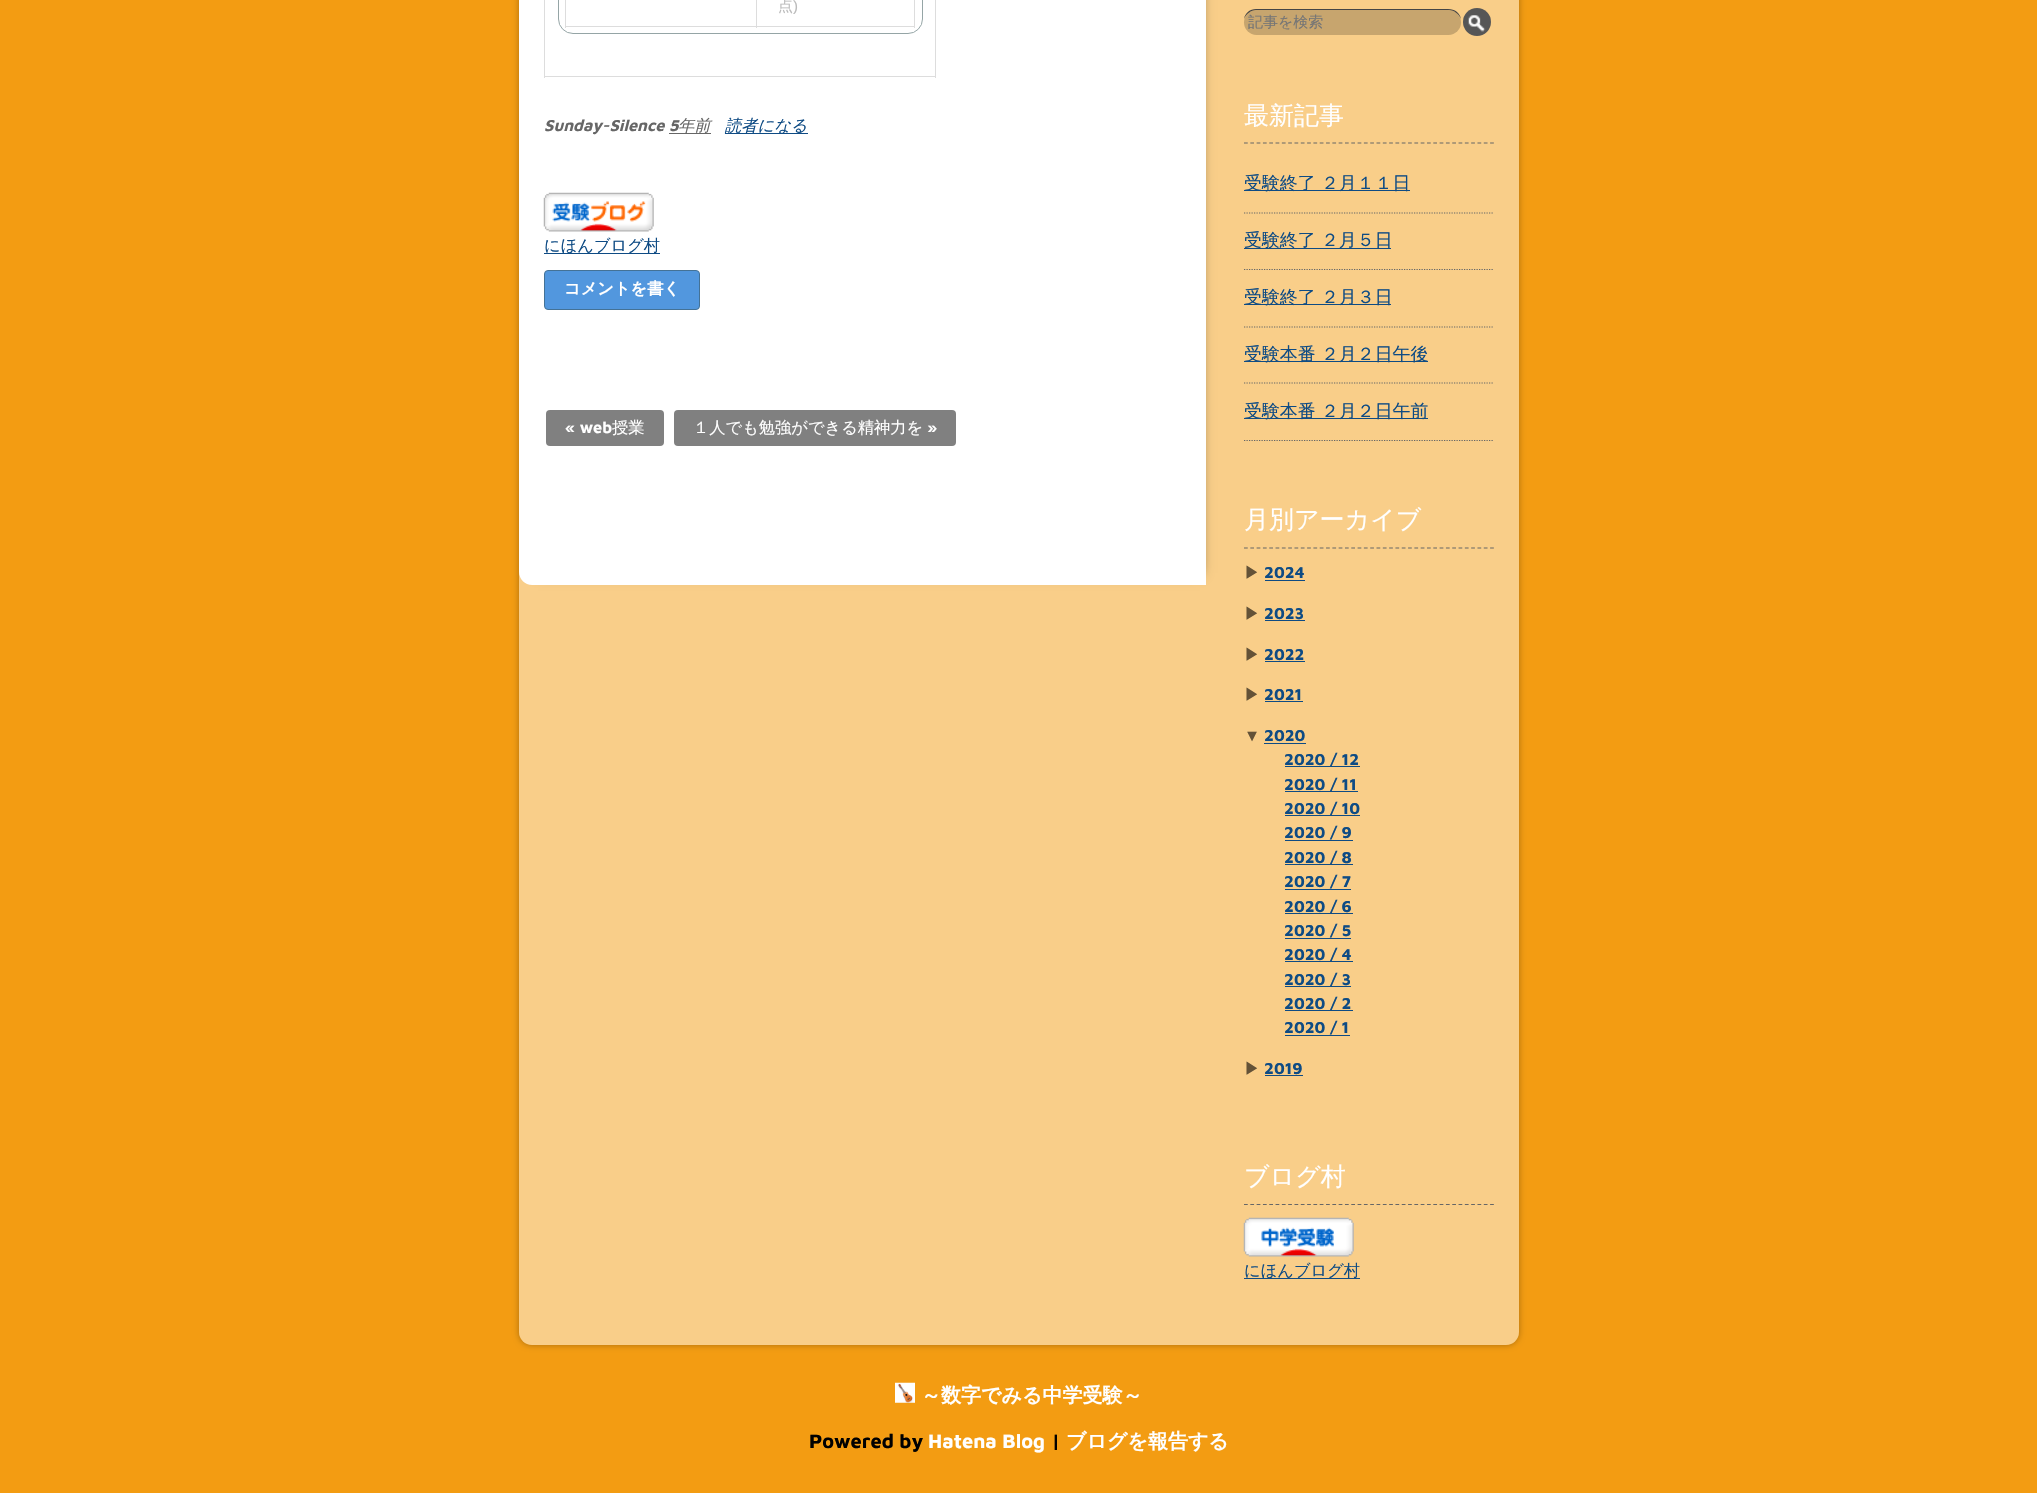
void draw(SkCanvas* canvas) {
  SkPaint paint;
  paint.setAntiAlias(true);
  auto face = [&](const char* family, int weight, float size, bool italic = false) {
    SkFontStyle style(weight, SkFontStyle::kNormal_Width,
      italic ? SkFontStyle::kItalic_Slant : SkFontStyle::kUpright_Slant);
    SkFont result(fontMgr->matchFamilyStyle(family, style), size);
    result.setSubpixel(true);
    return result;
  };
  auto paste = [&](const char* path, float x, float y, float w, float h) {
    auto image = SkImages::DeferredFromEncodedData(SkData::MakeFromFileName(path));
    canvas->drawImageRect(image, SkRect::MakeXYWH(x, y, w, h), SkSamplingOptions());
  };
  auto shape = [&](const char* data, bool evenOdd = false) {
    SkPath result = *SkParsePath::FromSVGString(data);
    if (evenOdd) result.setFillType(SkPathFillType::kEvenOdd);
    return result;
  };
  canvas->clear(0xfff39c12);
  canvas->save();
  canvas->clipPath(shape("M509 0H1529V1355H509ZM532-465H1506C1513-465 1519-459 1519-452V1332C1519 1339 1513 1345 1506 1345H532C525 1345 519 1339 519 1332V-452C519-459 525-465 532-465Z", true), true);
  paint.setColor(0x4d000000);
  paint.setMaskFilter(SkMaskFilter::MakeBlur(kNormal_SkBlurStyle, 3));
  canvas->drawRoundRect(SkRect::MakeXYWH(519, -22, 1000, 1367), 13, 13, paint);
  paint.setMaskFilter(nullptr);
  canvas->restore();
  paint.setColor(0x80ffffff);
  canvas->drawRoundRect(SkRect::MakeXYWH(519, -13, 1000, 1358), 13, 13, paint);
  paint.setColor(0xb3000000);
  paint.setMaskFilter(SkMaskFilter::MakeBlur(kNormal_SkBlurStyle, 6));
  canvas->drawRect(SkRect::MakeXYWH(538, -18, 662, 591), paint);
  paint.setMaskFilter(nullptr);
  paint.setColor(0xffffffff);
  canvas->drawPath(shape("M532-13H1206V585H532C525 585 519 579 519 572V0C519-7 525-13 532-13Z"), paint);
  {
    const struct { float x, y, w, h; SkColor color; } items[] = {
      {935, 0, 1, 78, 0xffdddddd},
      {544, 76, 392, 1, 0xffdddddd},
      {544, 0, 1, 78, 0xffdddddd},
    };
    for (auto [x, y, w, h, color] : items) {
      paint.setColor(color);
      canvas->drawRect(SkRect::MakeXYWH(x, y, w, h), paint);
    }
  }
  paint.setStroke(true);
  paint.setStrokeWidth(1);
  paint.setColor(0xff95a5a6);
  canvas->drawRoundRect(SkRect::MakeXYWH(558.5f, -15.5f, 364, 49), 14.5f, 14.5f, paint);
  paint.setStroke(false);
  {
    const struct { float x, y, w, h; SkColor color; } items[] = {
      {914, 0, 1, 28, 0xffdddddd},
      {756, 26, 159, 1, 0xffdddddd},
      {756, 0, 1, 28, 0xffdddddd},
      {565, 26, 193, 1, 0xffdddddd},
      {565, 0, 1, 28, 0xffdddddd},
      {669, 133, 42, 1, 0xff666666},
      {725, 133, 83, 1, 0xff0e4b84},
    };
    for (auto [x, y, w, h, color] : items) {
      paint.setColor(color);
      canvas->drawRect(SkRect::MakeXYWH(x, y, w, h), paint);
    }
  }
  paste("img/1.png", 543, 192, 111, 40);
  canvas->drawRect(SkRect::MakeXYWH(544, 253, 116, 1), paint);
  paint.setColor(0xff5297de);
  canvas->drawRoundRect(SkRect::MakeXYWH(544.5f, 270.5f, 155, 39), 3.5f, 3.5f, paint);
  paint.setStroke(true);
  paint.setColor(0xff447296);
  canvas->drawRoundRect(SkRect::MakeXYWH(544.5f, 270.5f, 155, 39), 3.5f, 3.5f, paint);
  paint.setStroke(false);
  paint.setColor(0xff808080);
  canvas->drawRoundRect(SkRect::MakeXYWH(546, 410, 118, 36), 4, 4, paint);
  canvas->drawRoundRect(SkRect::MakeXYWH(674, 410, 282, 36), 4, 4, paint);
  paint.setColor(0xff454545);
  canvas->drawPath(shape("M1256 9C1250 9 1245 13 1244 19C1246 14 1251 10 1256 10H1449C1454 10 1459 14 1461 19C1460 13 1455 9 1448 9Z"), paint);
  paint.setColor(0x33000000);
  canvas->drawRoundRect(SkRect::MakeXYWH(1244, 10, 217, 25), 12.5f, 12.5f, paint);
  paint.setColor(0xff565656);
  canvas->drawCircle(1477, 22, 14, paint);
  paste("img/2.png", 1468, 15, 18, 17);
  paint.setStroke(true);
  paint.setStrokeWidth(1.2f);
  paint.setColor(0xff666666);
  paint.setPathEffect(SkDashPathEffect::Make({{3.75f, 2.56f}}, 0));
  canvas->drawPath(shape("M1244 143H1494"), paint);
  paint.setPathEffect(nullptr);
  paint.setPathEffect(SkDashPathEffect::Make({{1.25f, 1.25f}}, 0));
  canvas->drawPath(shape("M1244 213H1494"), paint);
  paint.setPathEffect(nullptr);
  paint.setStroke(false);
  paint.setColor(0xff0e4b84);
  canvas->drawRect(SkRect::MakeXYWH(1244, 190, 166, 1), paint);
  paint.setStroke(true);
  paint.setColor(0xff666666);
  paint.setPathEffect(SkDashPathEffect::Make({{1.25f, 1.25f}}, 0));
  canvas->drawPath(shape("M1244 269.5H1494"), paint);
  paint.setPathEffect(nullptr);
  paint.setStroke(false);
  paint.setColor(0xff0e4b84);
  canvas->drawRect(SkRect::MakeXYWH(1244, 248, 147, 1), paint);
  paint.setStroke(true);
  paint.setColor(0xff666666);
  paint.setPathEffect(SkDashPathEffect::Make({{1.25f, 1.25f}}, 0));
  canvas->drawPath(shape("M1244 327H1494"), paint);
  paint.setPathEffect(nullptr);
  paint.setStroke(false);
  paint.setColor(0xff0e4b84);
  canvas->drawRect(SkRect::MakeXYWH(1244, 304, 147, 1), paint);
  paint.setStroke(true);
  paint.setColor(0xff666666);
  paint.setPathEffect(SkDashPathEffect::Make({{1.25f, 1.25f}}, 0));
  canvas->drawPath(shape("M1244 383H1494"), paint);
  paint.setPathEffect(nullptr);
  paint.setStroke(false);
  paint.setColor(0xff0e4b84);
  canvas->drawRect(SkRect::MakeXYWH(1244, 361, 184, 1), paint);
  paint.setStroke(true);
  paint.setColor(0xff666666);
  paint.setPathEffect(SkDashPathEffect::Make({{1.25f, 1.25f}}, 0));
  canvas->drawPath(shape("M1244 440.5H1494"), paint);
  paint.setPathEffect(nullptr);
  paint.setStroke(false);
  paint.setColor(0xff0e4b84);
  canvas->drawRect(SkRect::MakeXYWH(1244, 418, 184, 1), paint);
  paint.setStroke(true);
  paint.setColor(0xff666666);
  paint.setPathEffect(SkDashPathEffect::Make({{3.75f, 2.56f}}, 0));
  canvas->drawPath(shape("M1244 548H1494"), paint);
  paint.setPathEffect(nullptr);
  paint.setStroke(false);
  {
    const struct { float x, y, w, h; SkColor color; } items[] = {
      {1265, 580, 40, 1, 0xff0e4b84},
      {1265, 620, 40, 1, 0xff0e4b84},
      {1265, 661, 40, 1, 0xff0e4b84},
      {1265, 701, 38, 1, 0xff0e4b84},
      {1264, 743, 42, 1, 0xff0e4b84},
      {1285, 766, 75, 1, 0xff0e4b84},
      {1285, 791, 73, 1, 0xff0e4b84},
      {1285, 815, 75, 1, 0xff0e4b84},
      {1285, 840, 68, 1, 0xff0e4b84},
      {1285, 864, 68, 1, 0xff0e4b84},
      {1285, 889, 66, 1, 0xff0e4b84},
      {1285, 913, 68, 1, 0xff0e4b84},
      {1285, 938, 66, 1, 0xff0e4b84},
      {1285, 961, 68, 1, 0xff0e4b84},
      {1285, 986, 66, 1, 0xff0e4b84},
      {1285, 1010, 68, 1, 0xff0e4b84},
      {1285, 1035, 65, 1, 0xff0e4b84},
      {1265, 1075, 38, 1, 0xff0e4b84},
    };
    for (auto [x, y, w, h, color] : items) {
      paint.setColor(color);
      canvas->drawRect(SkRect::MakeXYWH(x, y, w, h), paint);
    }
  }
  paint.setStroke(true);
  paint.setColor(0xff666666);
  paint.setPathEffect(SkDashPathEffect::Make({{3.75f, 2.56f}}, 0));
  canvas->drawPath(shape("M1244 1204.5H1494"), paint);
  paint.setPathEffect(nullptr);
  paste("img/3.png", 1243, 1217, 111, 40);
  paint.setStroke(false);
  paint.setColor(0xff0e4b84);
  canvas->drawRect(SkRect::MakeXYWH(1244, 1278, 116, 1), paint);
  paste("img/4.png", 895, 1382, 20, 21);
  auto f0 = face("WenQuanYi Zen Hei", 500, 15);
  paint.setColor(0xffbbbbbb);
  canvas->drawString("点", 778, 11, f0, paint);
  auto f1 = face("Liberation Sans", 400, 15);
  canvas->drawString(")", 793, 11, f1, paint);
  auto f2 = face("Maven Pro", 700, 16.25f, true);
  paint.setColor(0xff666666);
  canvas->drawString("Sunday-Silence 5", 544, 131, f2, paint);
  auto f3 = face("WenQuanYi Zen Hei", 500, 16.25f, true);
  canvas->drawString("年前", 678, 131, f3, paint);
  paint.setColor(0xff0e4b84);
  canvas->drawString("読者になる", 725, 131, f3, paint);
  auto f4 = face("WenQuanYi Zen Hei", 500, 16.25f);
  canvas->drawString("にほんブログ村", 544, 251, f4, paint);
  auto f5 = face("WenQuanYi Zen Hei", 700, 16.25f);
  paint.setColor(0xffffffff);
  canvas->drawString("コメントを書く", 564, 294, f5, paint);
  auto f6 = face("Maven Pro", 700, 16.25f);
  canvas->drawString("« web", 565, 433, f6, paint);
  canvas->drawString("授業", 612, 433, f4, paint);
  canvas->drawString("１人でも勉強ができる精神力を", 693, 433, f4, paint);
  canvas->drawString("»", 927, 433, f6, paint);
  paint.setColor(0xff757575);
  canvas->drawString("記事を検索", 1248, 27, f0, paint);
  auto f7 = face("WenQuanYi Zen Hei", 500, 25);
  paint.setColor(0xffffffff);
  canvas->drawString("最新記事", 1244, 124, f7, paint);
  auto f8 = face("WenQuanYi Zen Hei", 500, 17.9f);
  paint.setColor(0xff0e4b84);
  {
    const struct { const char* s; float x, y; } items[] = {
      {"受験終了 ２月１１日", 1244, 189},
      {"受験終了 ２月５日", 1244, 246},
      {"受験終了 ２月３日", 1244, 303},
      {"受験本番 ２月２日午後", 1244, 360},
      {"受験本番 ２月２日午前", 1244, 417},
    };
    for (auto [s, x, y] : items) {
      canvas->drawString(s, x, y, f8, paint);
    }
  }
  paint.setColor(0xffffffff);
  canvas->drawString("月別アーカイブ", 1244, 528, f7, paint);
  paint.setColor(0xff645237);
  canvas->drawString("▶", 1244, 578, f4, paint);
  paint.setColor(0xff0e4b84);
  canvas->drawString("2024", 1264, 578, f6, paint);
  paint.setColor(0xff645237);
  canvas->drawString("▶", 1244, 619, f4, paint);
  paint.setColor(0xff0e4b84);
  canvas->drawString("2023", 1264, 619, f6, paint);
  paint.setColor(0xff645237);
  canvas->drawString("▶", 1244, 660, f4, paint);
  paint.setColor(0xff0e4b84);
  canvas->drawString("2022", 1264, 660, f6, paint);
  paint.setColor(0xff645237);
  canvas->drawString("▶", 1244, 700, f4, paint);
  paint.setColor(0xff0e4b84);
  canvas->drawString("2021", 1264, 700, f6, paint);
  auto f9 = face("Liberation Sans", 400, 16.25f);
  paint.setColor(0xff645237);
  canvas->drawString("▼", 1244, 741, f9, paint);
  paint.setColor(0xff0e4b84);
  {
    const struct { const char* s; float x, y; } items[] = {
      {"2020", 1264, 741},
      {"2020 / 12", 1284, 765},
      {"2020 / 11", 1284, 790},
      {"2020 / 10", 1284, 814},
      {"2020 / 9", 1284, 838},
      {"2020 / 8", 1284, 863},
      {"2020 / 7", 1284, 887},
      {"2020 / 6", 1284, 912},
      {"2020 / 5", 1284, 936},
      {"2020 / 4", 1284, 960},
      {"2020 / 3", 1284, 985},
      {"2020 / 2", 1284, 1009},
      {"2020 / 1", 1284, 1033},
    };
    for (auto [s, x, y] : items) {
      canvas->drawString(s, x, y, f6, paint);
    }
  }
  paint.setColor(0xff645237);
  canvas->drawString("▶", 1244, 1074, f4, paint);
  paint.setColor(0xff0e4b84);
  canvas->drawString("2019", 1264, 1074, f6, paint);
  paint.setColor(0xffffffff);
  canvas->drawString("ブログ村", 1244, 1185, f7, paint);
  paint.setColor(0xff0e4b84);
  canvas->drawString("にほんブログ村", 1244, 1276, f4, paint);
  auto f10 = face("WenQuanYi Zen Hei", 700, 20);
  paint.setColor(0xffffffff);
  canvas->drawString("～数字でみる中学受験～", 921, 1402, f10, paint);
  auto f11 = face("Maven Pro", 700, 20);
  paint.setColor(0xff000000);
  canvas->drawString("Powered by", 809, 1448, f11, paint);
  paint.setColor(0xffffffff);
  canvas->drawString("Hatena Blog", 928, 1448, f11, paint);
  paint.setColor(0xff000000);
  canvas->drawString("|", 1051, 1448, f11, paint);
  paint.setColor(0xffffffff);
  canvas->drawString("ブログを報告する", 1066, 1448, f10, paint);
}
